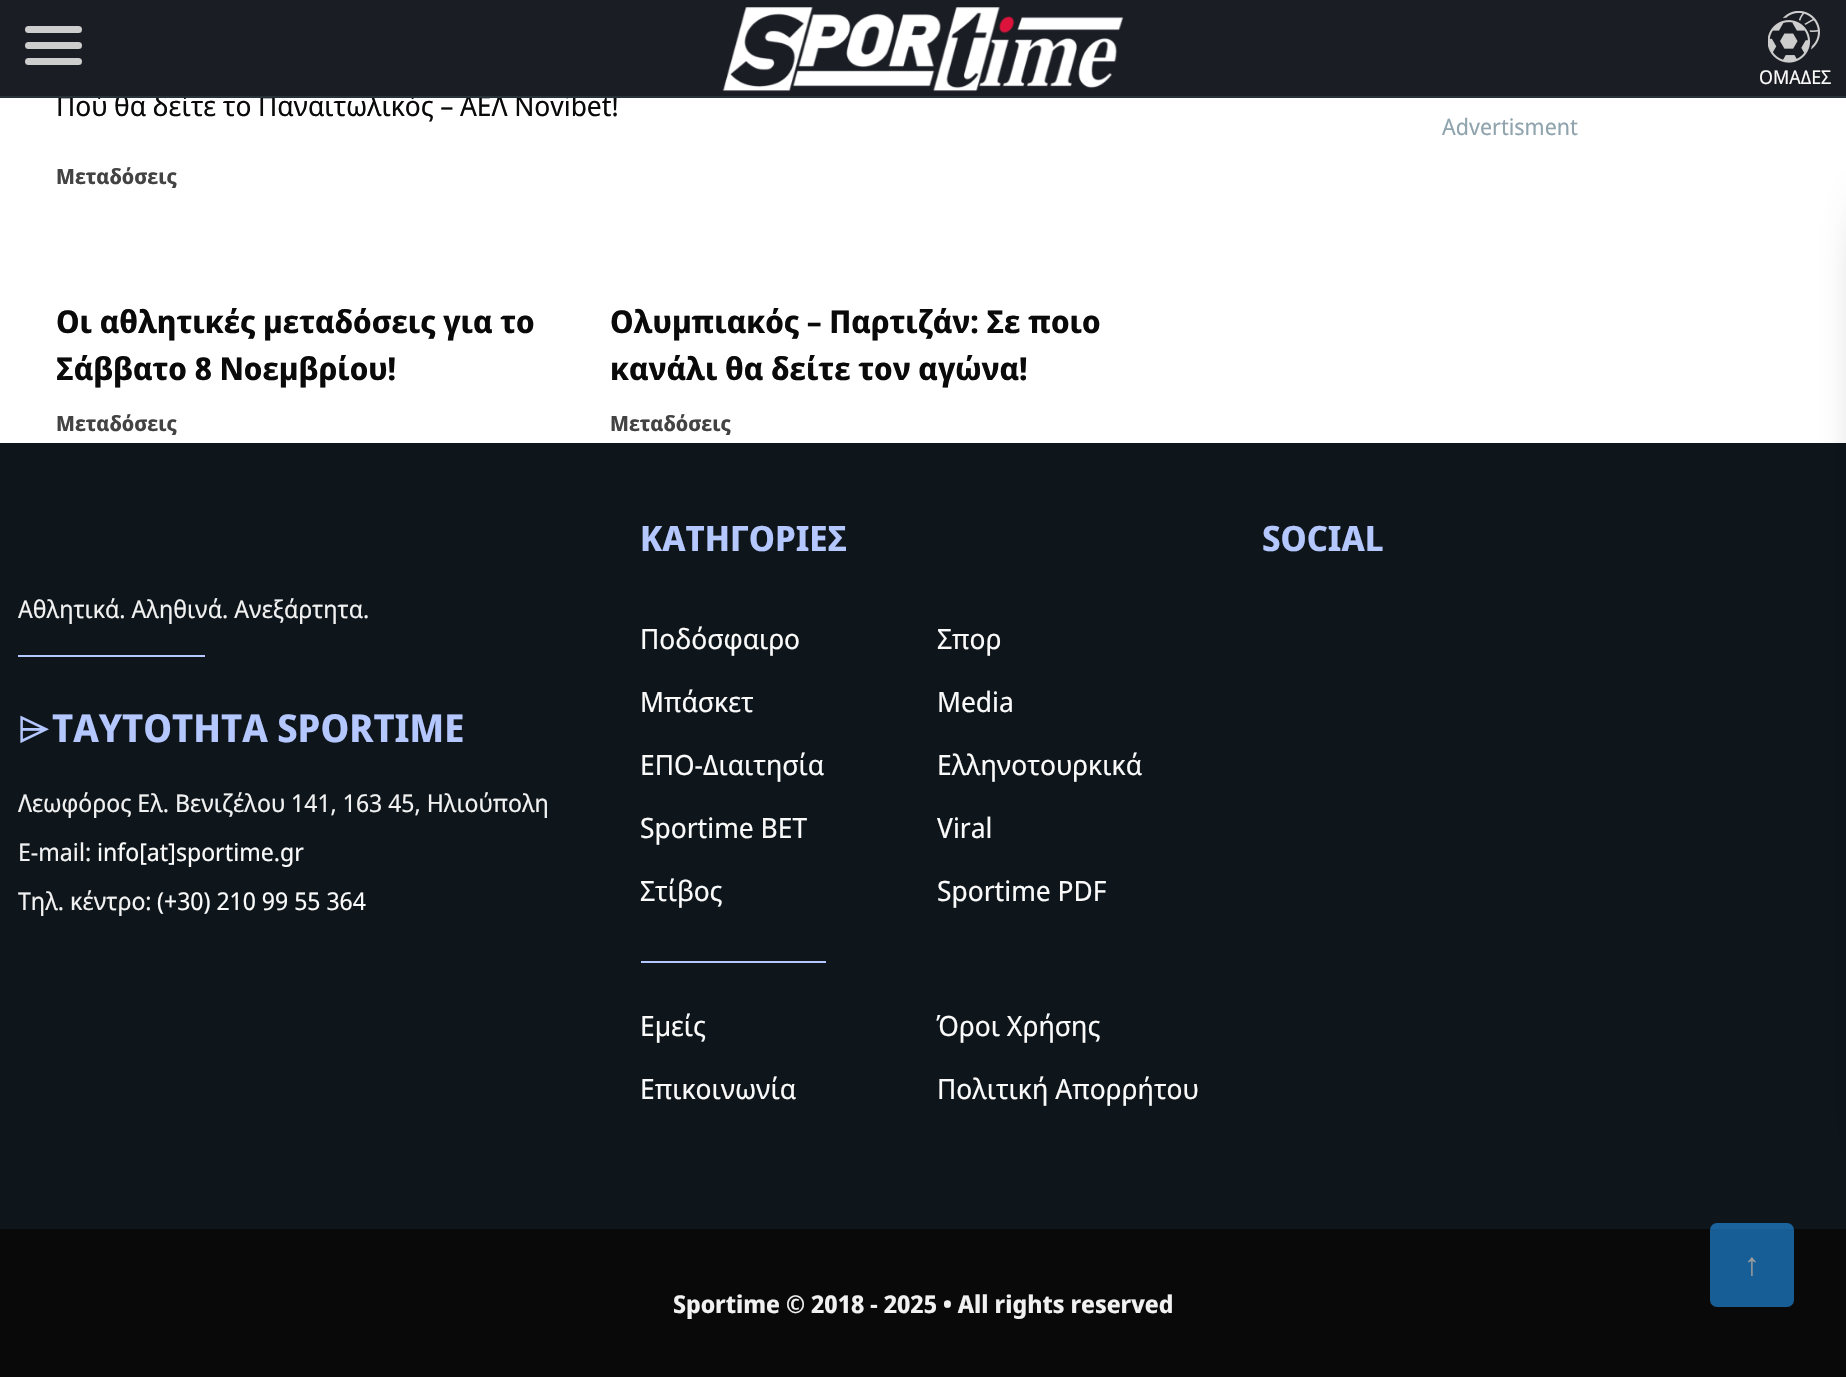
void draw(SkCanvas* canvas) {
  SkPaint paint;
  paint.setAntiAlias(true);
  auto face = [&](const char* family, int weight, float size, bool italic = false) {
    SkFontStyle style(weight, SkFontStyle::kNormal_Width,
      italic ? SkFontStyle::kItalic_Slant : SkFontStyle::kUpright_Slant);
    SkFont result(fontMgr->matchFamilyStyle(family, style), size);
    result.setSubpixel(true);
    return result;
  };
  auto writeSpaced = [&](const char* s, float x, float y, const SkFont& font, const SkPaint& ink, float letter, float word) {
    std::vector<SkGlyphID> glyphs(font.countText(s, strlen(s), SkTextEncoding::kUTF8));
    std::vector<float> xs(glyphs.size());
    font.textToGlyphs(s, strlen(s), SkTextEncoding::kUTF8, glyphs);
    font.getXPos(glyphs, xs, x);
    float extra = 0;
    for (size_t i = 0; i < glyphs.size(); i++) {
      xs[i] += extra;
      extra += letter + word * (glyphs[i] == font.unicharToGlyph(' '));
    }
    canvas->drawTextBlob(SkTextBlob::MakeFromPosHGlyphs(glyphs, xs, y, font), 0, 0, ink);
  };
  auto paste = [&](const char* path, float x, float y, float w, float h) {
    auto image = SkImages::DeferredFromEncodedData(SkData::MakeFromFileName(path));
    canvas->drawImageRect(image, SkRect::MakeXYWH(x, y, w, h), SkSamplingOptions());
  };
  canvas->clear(0xffffffff);
  paint.setColor(0xff0e161b);
  canvas->drawRect(SkRect::MakeXYWH(0, 443, 1846, 786), paint);
  paint.setColor(0xff090909);
  canvas->drawRect(SkRect::MakeXYWH(0, 1229, 1846, 148), paint);
  paint.setColor(0x99000000);
  paint.setMaskFilter(SkMaskFilter::MakeBlur(kNormal_SkBlurStyle, 26));
  canvas->drawRoundRect(SkRect::MakeXYWH(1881, 207, 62, 964), 31, 31, paint);
  paint.setMaskFilter(nullptr);
  paint.setColor(0xffb5c7ff);
  canvas->drawRect(SkRect::MakeXYWH(641, 961, 185, 2), paint);
  canvas->drawRect(SkRect::MakeXYWH(18, 655, 187, 2), paint);
  paint.setColor(0x992196f3);
  canvas->drawRoundRect(SkRect::MakeXYWH(1710, 1223, 84, 84), 7, 7, paint);
  auto f0 = face("Noto Sans Display", 400, 28);
  paint.setColor(0xff0a0a0a);
  writeSpaced("Πού θα δείτε το Παναιτωλικός – ΑΕΛ Novibet!", 56, 116, f0, paint, 0, -0.25f);
  paint.setColor(0xff1a1d24);
  canvas->drawRect(SkRect::MakeXYWH(0, 0, 1846, 96), paint);
  paint.setColor(0xffcdcdcd);
  canvas->drawRoundRect(SkRect::MakeXYWH(25, 58, 57, 7), 3.5f, 3.5f, paint);
  canvas->drawRoundRect(SkRect::MakeXYWH(25, 42, 57, 7), 3.5f, 3.5f, paint);
  canvas->drawRoundRect(SkRect::MakeXYWH(25, 26, 57, 7), 3.5f, 3.5f, paint);
  auto f1 = face("Noto Sans Display", 400, 19);
  paint.setColor(0xfffafafa);
  canvas->drawString("ΟΜΑΔΕΣ", 1759, 84, f1, paint);
  paste("img/2.png", 1768, 11, 52, 52);
  paste("img/1.png", 722, 7, 402, 85);
  paint.setColor(0xff263238);
  canvas->drawRect(SkRect::MakeXYWH(0, 96, 1846, 2), paint);
  auto f2 = face("Noto Sans Display", 700, 21);
  paint.setColor(0xff434343);
  canvas->drawString("Μεταδόσεις", 56, 184, f2, paint);
  auto f3 = face("Noto Sans Display", 700, 31.5f);
  paint.setColor(0xff0a0a0a);
  canvas->drawString("Οι αθλητικές μεταδόσεις για το", 56, 333, f3, paint);
  canvas->drawString("Σάββατο 8 Νοεμβρίου!", 56, 380, f3, paint);
  paint.setColor(0xff434343);
  canvas->drawString("Μεταδόσεις", 56, 431, f2, paint);
  paint.setColor(0xff0a0a0a);
  canvas->drawString("Ολυμπιακός – Παρτιζάν: Σε ποιο", 610, 333, f3, paint);
  canvas->drawString("κανάλι θα δείτε τον αγώνα!", 610, 380, f3, paint);
  paint.setColor(0xff434343);
  canvas->drawString("Μεταδόσεις", 610, 431, f2, paint);
  auto f4 = face("Noto Sans Display", 400, 22.75f);
  paint.setColor(0xff90a4ae);
  canvas->drawString("Advertisment", 1442, 135, f4, paint);
  auto f5 = face("Noto Sans Display", 700, 35);
  paint.setColor(0xffb5c7ff);
  canvas->drawString("ΚΑΤΗΓΟΡΙΕΣ", 640, 551, f5, paint);
  paint.setColor(0xfffafafa);
  {
    const struct { const char* s; float x, y; } items[] = {
      {"Ποδόσφαιρο", 640, 649},
      {"Σπορ", 937, 649},
      {"Μπάσκετ", 640, 712},
      {"Media", 937, 712},
      {"ΕΠΟ-Διαιτησία", 640, 775},
      {"Ελληνοτουρκικά", 937, 775},
      {"Sportime BET", 640, 838},
      {"Viral", 937, 838},
      {"Στίβος", 640, 901},
      {"Sportime PDF", 937, 901},
      {"Εμείς", 640, 1036},
      {"Όροι Χρήσης", 937, 1036},
      {"Επικοινωνία", 640, 1099},
      {"Πολιτική Απορρήτου", 937, 1099},
    };
    for (auto [s, x, y] : items) {
      canvas->drawString(s, x, y, f0, paint);
    }
  }
  paint.setColor(0xffb5c7ff);
  canvas->drawString("SOCIAL", 1262, 551, f5, paint);
  auto f6 = face("Noto Sans Display", 400, 24.5f);
  paint.setColor(0xfff1f1f1);
  canvas->drawString("Αθλητικά. Αληθινά. Ανεξάρτητα.", 18, 618, f6, paint);
  auto f7 = face("FreeSerif", 700, 38.5f);
  paint.setColor(0xffb5c7ff);
  canvas->drawString("⌲", 18, 742, f7, paint);
  auto f8 = face("Noto Sans Display", 700, 38.5f);
  canvas->drawString("ΤΑΥΤΟΤΗΤΑ SPORTIME", 52, 742, f8, paint);
  paint.setColor(0xfff1f1f1);
  canvas->drawString("Λεωφόρος Ελ. Βενιζέλου 141, 163 45, Ηλιούπολη", 18, 812, f6, paint);
  canvas->drawString("E-mail:", 18, 861, f6, paint);
  paint.setColor(0xfffafafa);
  canvas->drawString("info[at]sportime.gr", 97, 861, f6, paint);
  paint.setColor(0xfff1f1f1);
  canvas->drawString("Τηλ. κέντρο:", 18, 910, f6, paint);
  paint.setColor(0xfffafafa);
  canvas->drawString("(+30) 210 99 55 364", 157, 910, f6, paint);
  auto f9 = face("Noto Sans Display", 700, 24.5f);
  paint.setColor(0xfff1f1f1);
  canvas->drawString("Sportime © 2018 - 2025 • All rights reserved", 673, 1313, f9, paint);
  auto f10 = face("Liberation Sans", 400, 31.5f);
  paint.setColor(0xff9d9d9d);
  canvas->drawString("↑", 1744, 1275, f10, paint);
}
